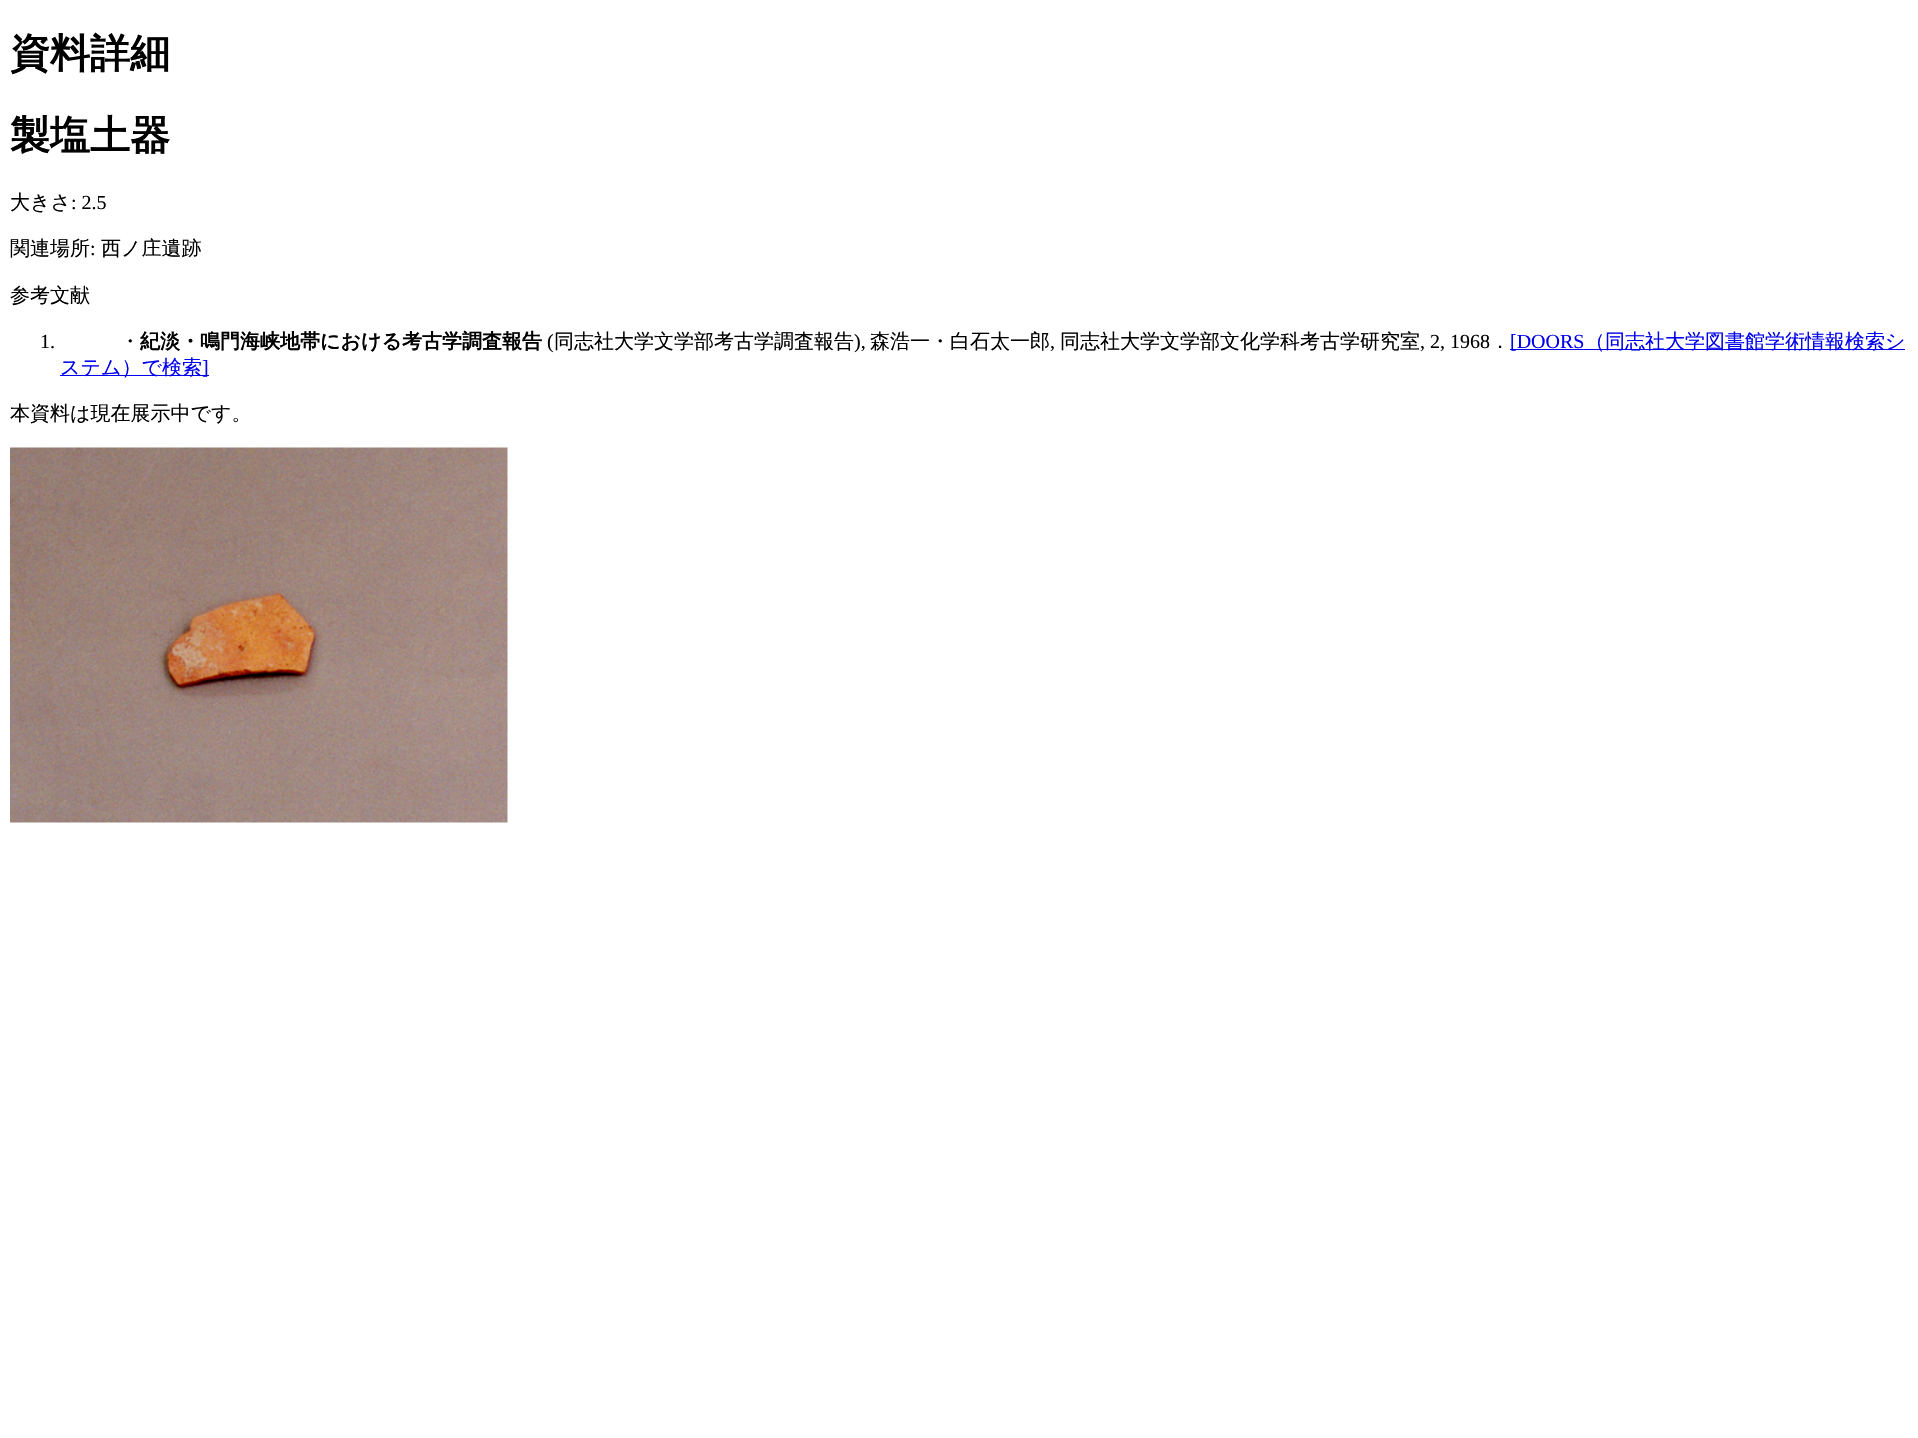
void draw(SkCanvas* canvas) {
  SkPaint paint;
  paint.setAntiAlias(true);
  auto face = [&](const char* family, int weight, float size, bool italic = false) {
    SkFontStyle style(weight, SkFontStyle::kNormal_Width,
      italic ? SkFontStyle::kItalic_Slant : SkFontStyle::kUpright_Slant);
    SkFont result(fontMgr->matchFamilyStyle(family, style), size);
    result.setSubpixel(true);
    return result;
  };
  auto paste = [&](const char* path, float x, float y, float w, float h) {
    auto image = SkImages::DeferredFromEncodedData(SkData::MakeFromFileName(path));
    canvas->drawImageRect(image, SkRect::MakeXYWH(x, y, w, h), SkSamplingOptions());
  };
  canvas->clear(0xffffffff);
  paint.setColor(0xff0000ee);
  canvas->drawRect(SkRect::MakeXYWH(1510, 349, 395, 1), paint);
  canvas->drawRect(SkRect::MakeXYWH(60, 375, 149, 1), paint);
  paste("img/1.png", 10, 447, 498, 376);
  auto f0 = face("WenQuanYi Zen Hei", 700, 40);
  paint.setColor(0xff000000);
  canvas->drawString("資料詳細", 10, 67, f0, paint);
  canvas->drawString("製塩土器", 10, 149, f0, paint);
  auto f1 = face("WenQuanYi Zen Hei", 500, 20);
  canvas->drawString("大きさ", 10, 209, f1, paint);
  auto f2 = face("Liberation Serif", 400, 20);
  canvas->drawString(": 2.5", 71, 209, f2, paint);
  canvas->drawString("関連場所", 10, 255, f1, paint);
  canvas->drawString(":", 90, 255, f2, paint);
  canvas->drawString("西ノ庄遺跡", 101, 255, f1, paint);
  canvas->drawString("参考文献", 10, 302, f1, paint);
  canvas->drawString("1.", 40, 348, f2, paint);
  canvas->drawString("・", 120, 348, f1, paint);
  auto f3 = face("WenQuanYi Zen Hei", 700, 20);
  canvas->drawString("紀淡・鳴門海峡地帯における考古学調査報告", 140, 348, f3, paint);
  canvas->drawString("(", 547, 348, f2, paint);
  canvas->drawString("同志社大学文学部考古学調査報告", 554, 348, f1, paint);
  canvas->drawString("),", 854, 348, f2, paint);
  canvas->drawString("森浩一・白石太一郎", 870, 348, f1, paint);
  canvas->drawString("同志社大学文学部文化学科考古学研究室", 1060, 348, f1, paint);
  canvas->drawString(", 2, 1968", 1420, 348, f2, paint);
  paint.setColor(0xff0000ee);
  canvas->drawString("[DOORS", 1510, 348, f2, paint);
  canvas->drawString("（同志社大学図書館学術情報検索シ", 1585, 348, f1, paint);
  paint.setColor(0xff000000);
  canvas->drawString(",", 1050, 348, f2, paint);
  canvas->drawString("．", 1490, 348, f1, paint);
  paint.setColor(0xff0000ee);
  canvas->drawString("ステム）で検索", 60, 374, f1, paint);
  canvas->drawString("]", 202, 374, f2, paint);
  paint.setColor(0xff000000);
  canvas->drawString("本資料は現在展示中です。", 10, 420, f1, paint);
}
